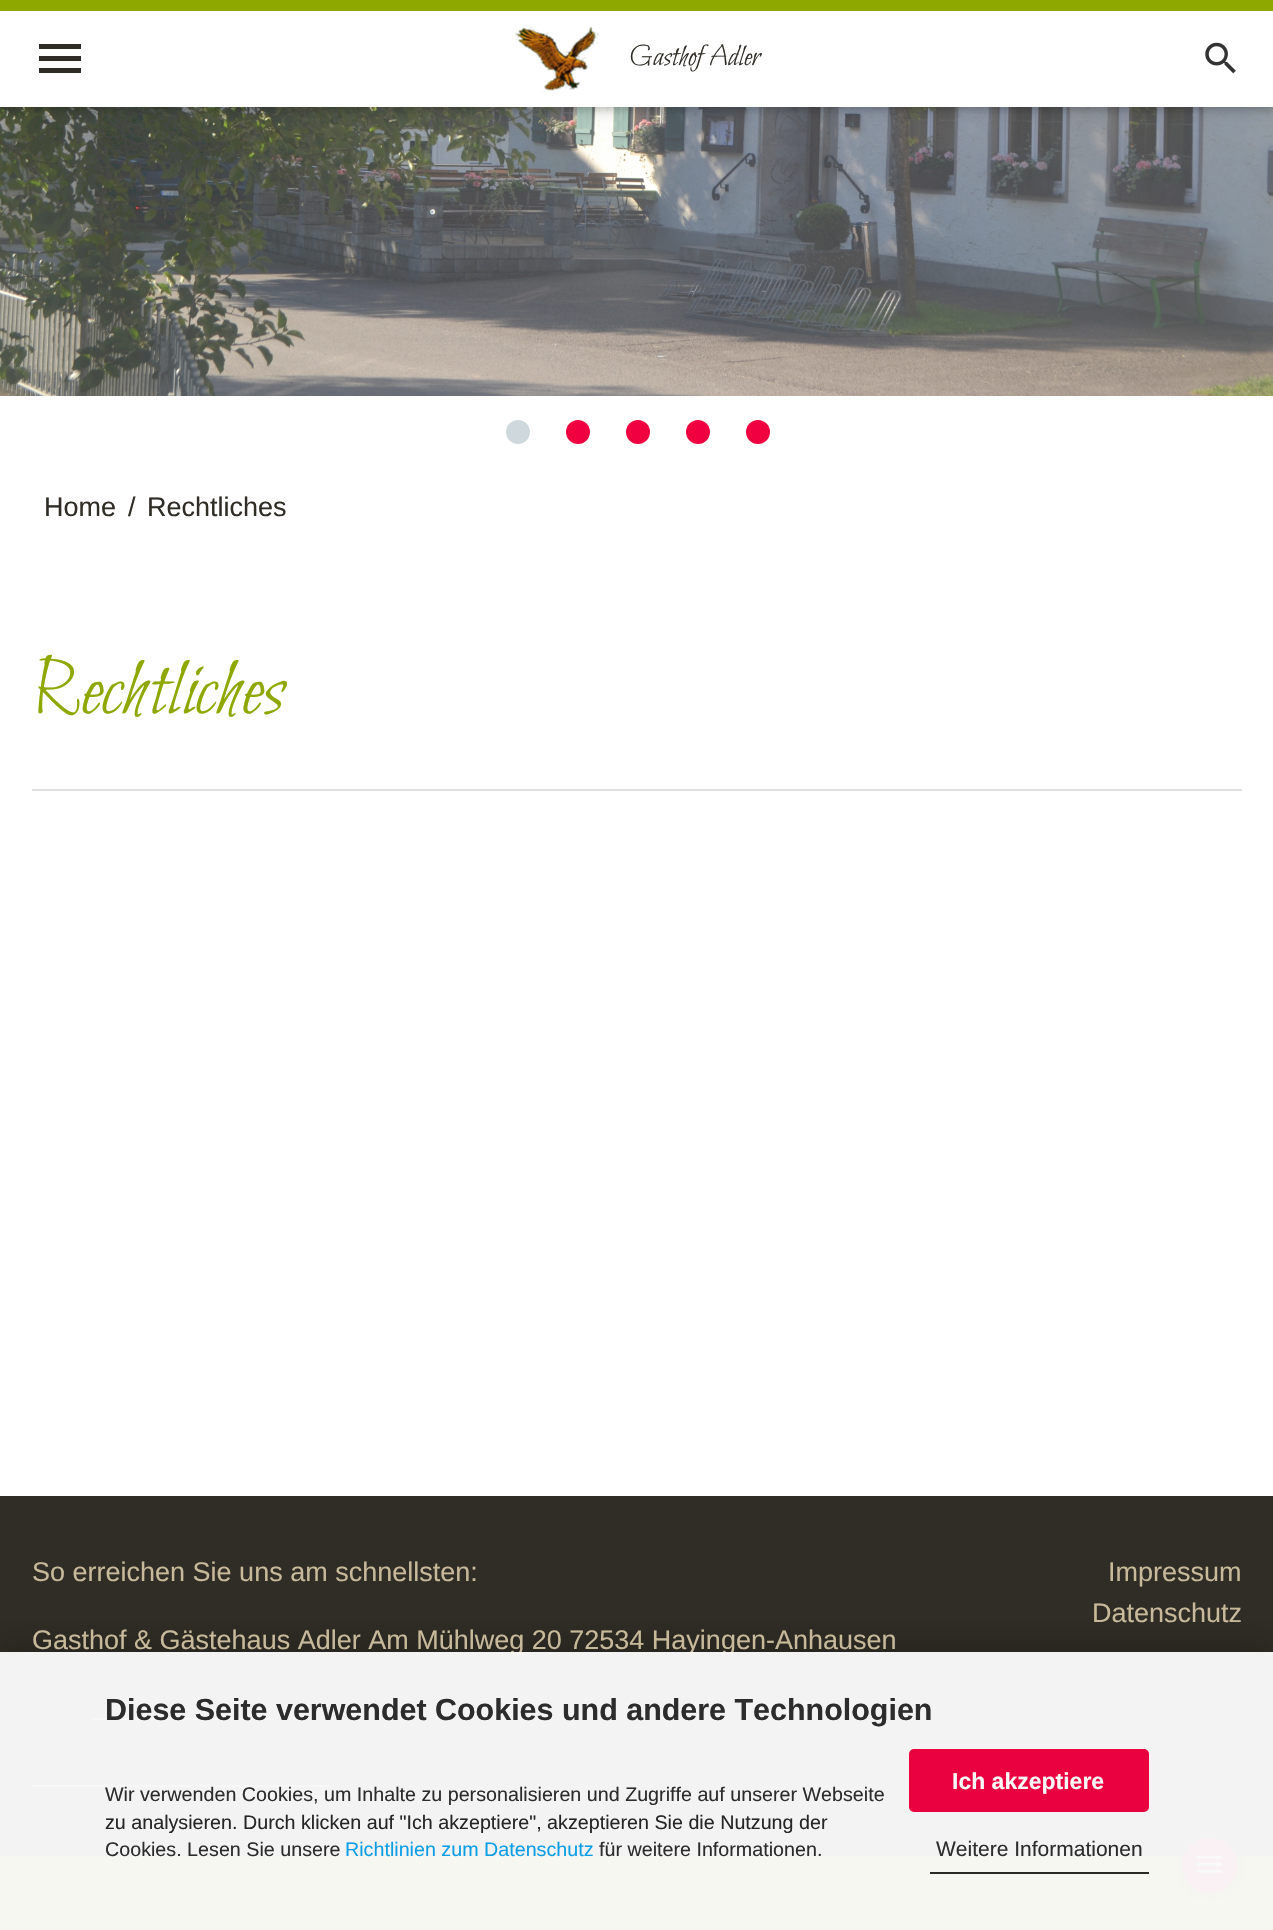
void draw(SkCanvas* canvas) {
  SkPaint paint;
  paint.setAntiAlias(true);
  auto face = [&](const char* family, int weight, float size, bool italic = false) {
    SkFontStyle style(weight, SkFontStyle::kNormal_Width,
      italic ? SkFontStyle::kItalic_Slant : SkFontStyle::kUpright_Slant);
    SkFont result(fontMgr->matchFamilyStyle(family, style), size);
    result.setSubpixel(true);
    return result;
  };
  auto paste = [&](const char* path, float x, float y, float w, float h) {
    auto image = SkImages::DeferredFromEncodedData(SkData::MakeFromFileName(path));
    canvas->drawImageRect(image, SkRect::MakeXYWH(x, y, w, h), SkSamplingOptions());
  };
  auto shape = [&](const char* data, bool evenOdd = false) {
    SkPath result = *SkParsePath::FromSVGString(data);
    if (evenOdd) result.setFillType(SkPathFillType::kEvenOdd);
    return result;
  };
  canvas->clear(0xffffffff);
  paste("img/3.png", 0, 107, 1273, 289);
  paint.setColor(0x1f000000);
  paint.setMaskFilter(SkMaskFilter::MakeBlur(kNormal_SkBlurStyle, 7.5f));
  canvas->drawRect(SkRect::MakeXYWH(0, 3, 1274, 107), paint);
  paint.setMaskFilter(nullptr);
  paint.setColor(0x29000000);
  paint.setMaskFilter(SkMaskFilter::MakeBlur(kNormal_SkBlurStyle, 4));
  canvas->drawRect(SkRect::MakeXYWH(0, 3, 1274, 107), paint);
  paint.setMaskFilter(nullptr);
  paint.setColor(0xffffffff);
  canvas->drawRect(SkRect::MakeXYWH(0, 11, 1273, 96), paint);
  paint.setColor(0xff8ea800);
  canvas->drawRect(SkRect::MakeXYWH(0, 0, 1273, 11), paint);
  paint.setColor(0xff302d26);
  canvas->drawPath(shape("M39 44H81V49H39ZM39 61V56H81V61ZM39 73V68H81V73Z"), paint);
  paste("img/1.png", 515, 26, 84, 67);
  paste("img/2.png", 1205, 42, 31, 32);
  paint.setColor(0xffcfd8dc);
  canvas->drawCircle(518, 432, 12, paint);
  paint.setColor(0xfff00040);
  canvas->drawCircle(578, 432, 12, paint);
  canvas->drawCircle(638, 432, 12, paint);
  canvas->drawCircle(698, 432, 12, paint);
  canvas->drawCircle(758, 432, 12, paint);
  {
    const struct { float x, y, w, h; SkColor color; } items[] = {
      {32, 789, 1210, 2, 0xffe0e0e0},
      {0, 1496, 1273, 360, 0xff302d26},
      {92, 1718, 181, 2, 0xffc7b99a},
      {32, 1785, 297, 2, 0xffc7b99a},
      {0, 1856, 1273, 74, 0xff8ea800},
    };
    for (auto [x, y, w, h, color] : items) {
      paint.setColor(color);
      canvas->drawRect(SkRect::MakeXYWH(x, y, w, h), paint);
    }
  }
  paint.setColor(0x1f000000);
  paint.setMaskFilter(SkMaskFilter::MakeBlur(kNormal_SkBlurStyle, 7.5f));
  canvas->drawRoundRect(SkRect::MakeXYWH(1182, 1841, 56, 55), 27.5f, 27.5f, paint);
  paint.setMaskFilter(nullptr);
  paint.setColor(0x29000000);
  paint.setMaskFilter(SkMaskFilter::MakeBlur(kNormal_SkBlurStyle, 4));
  canvas->drawRoundRect(SkRect::MakeXYWH(1182, 1841, 56, 55), 27.5f, 27.5f, paint);
  paint.setMaskFilter(nullptr);
  paint.setColor(0xfff00040);
  canvas->drawRoundRect(SkRect::MakeXYWH(1182, 1838, 56, 55), 27.5f, 27.5f, paint);
  paste("img/4.png", 1196, 1855, 26, 18);
  canvas->save();
  canvas->clipRect(SkRect::MakeXYWH(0, 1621, 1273, 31));
  paint.setColor(0x30000000);
  paint.setMaskFilter(SkMaskFilter::MakeBlur(kNormal_SkBlurStyle, 15));
  canvas->drawRect(SkRect::MakeXYWH(0, 1640, 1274, 279), paint);
  paint.setMaskFilter(nullptr);
  canvas->restore();
  auto f0 = face("Bilbo", 400, 31);
  paint.setColor(0xff302d26);
  canvas->drawString("Gasthof Adler", 629, 65, f0, paint);
  auto f1 = face("Liberation Sans", 400, 27);
  {
    const struct { const char* s; float x, y; } items[] = {
      {"Home", 44, 516},
      {"/", 128, 516},
      {"Rechtliches", 147, 516},
    };
    for (auto [s, x, y] : items) {
      canvas->drawString(s, x, y, f1, paint);
    }
  }
  auto f2 = face("Bilbo", 400, 84);
  paint.setColor(0xff8ea800);
  canvas->drawString("Rechtliches", 32, 713, f2, paint);
  paint.setColor(0xffc7b99a);
  {
    const struct { const char* s; float x, y; } items[] = {
      {"So erreichen Sie uns am schnellsten:", 32, 1581},
      {"Gasthof & Gästehaus Adler Am Mühlweg 20 72534 Hayingen-Anhausen", 32, 1649},
      {"Impressum", 1108, 1581},
      {"Datenschutz", 1092, 1622},
    };
    for (auto [s, x, y] : items) {
      canvas->drawString(s, x, y, f1, paint);
    }
  }
  paint.setColor(0xf7f9f9f9);
  canvas->drawRect(SkRect::MakeXYWH(0, 1652, 1273, 278), paint);
  auto f3 = face("Liberation Sans", 700, 30.45f);
  paint.setColor(0xff2c2c2c);
  canvas->drawString("Diese Seite verwendet Cookies und andere Technologien", 105, 1720, f3, paint);
  auto f4 = face("Liberation Sans", 400, 19.7f);
  canvas->drawString("Wir verwenden Cookies, um Inhalte zu personalisieren und Zugriffe auf unserer Webseite", 105, 1801, f4, paint);
  paint.setColor(0xff262626);
  canvas->drawString("zu analysieren. Durch klicken auf \"Ich akzeptiere\", akzeptieren Sie die Nutzung der", 105, 1829, f4, paint);
  paint.setColor(0xff2c2c2c);
  canvas->drawString("Cookies. Lesen Sie unsere", 105, 1856, f4, paint);
  paint.setColor(0xff0a9ee5);
  canvas->drawString("Richtlinien zum Datenschutz", 345, 1856, f4, paint);
  paint.setColor(0xff2c2c2c);
  canvas->drawString("für weitere Informationen.", 599, 1856, f4, paint);
  paint.setColor(0xffea013f);
  canvas->drawRoundRect(SkRect::MakeXYWH(909, 1749, 240, 63), 5, 5, paint);
  auto f5 = face("Liberation Sans", 700, 23);
  paint.setColor(0xfff9f9f8);
  canvas->drawString("Ich akzeptiere", 952, 1789, f5, paint);
  paint.setColor(0xff292a25);
  canvas->drawRect(SkRect::MakeXYWH(930, 1872, 219, 2), paint);
  auto f6 = face("Liberation Sans", 400, 21);
  paint.setColor(0xff2c2c2c);
  canvas->drawString("Weitere Informationen", 936, 1856, f6, paint);
}
